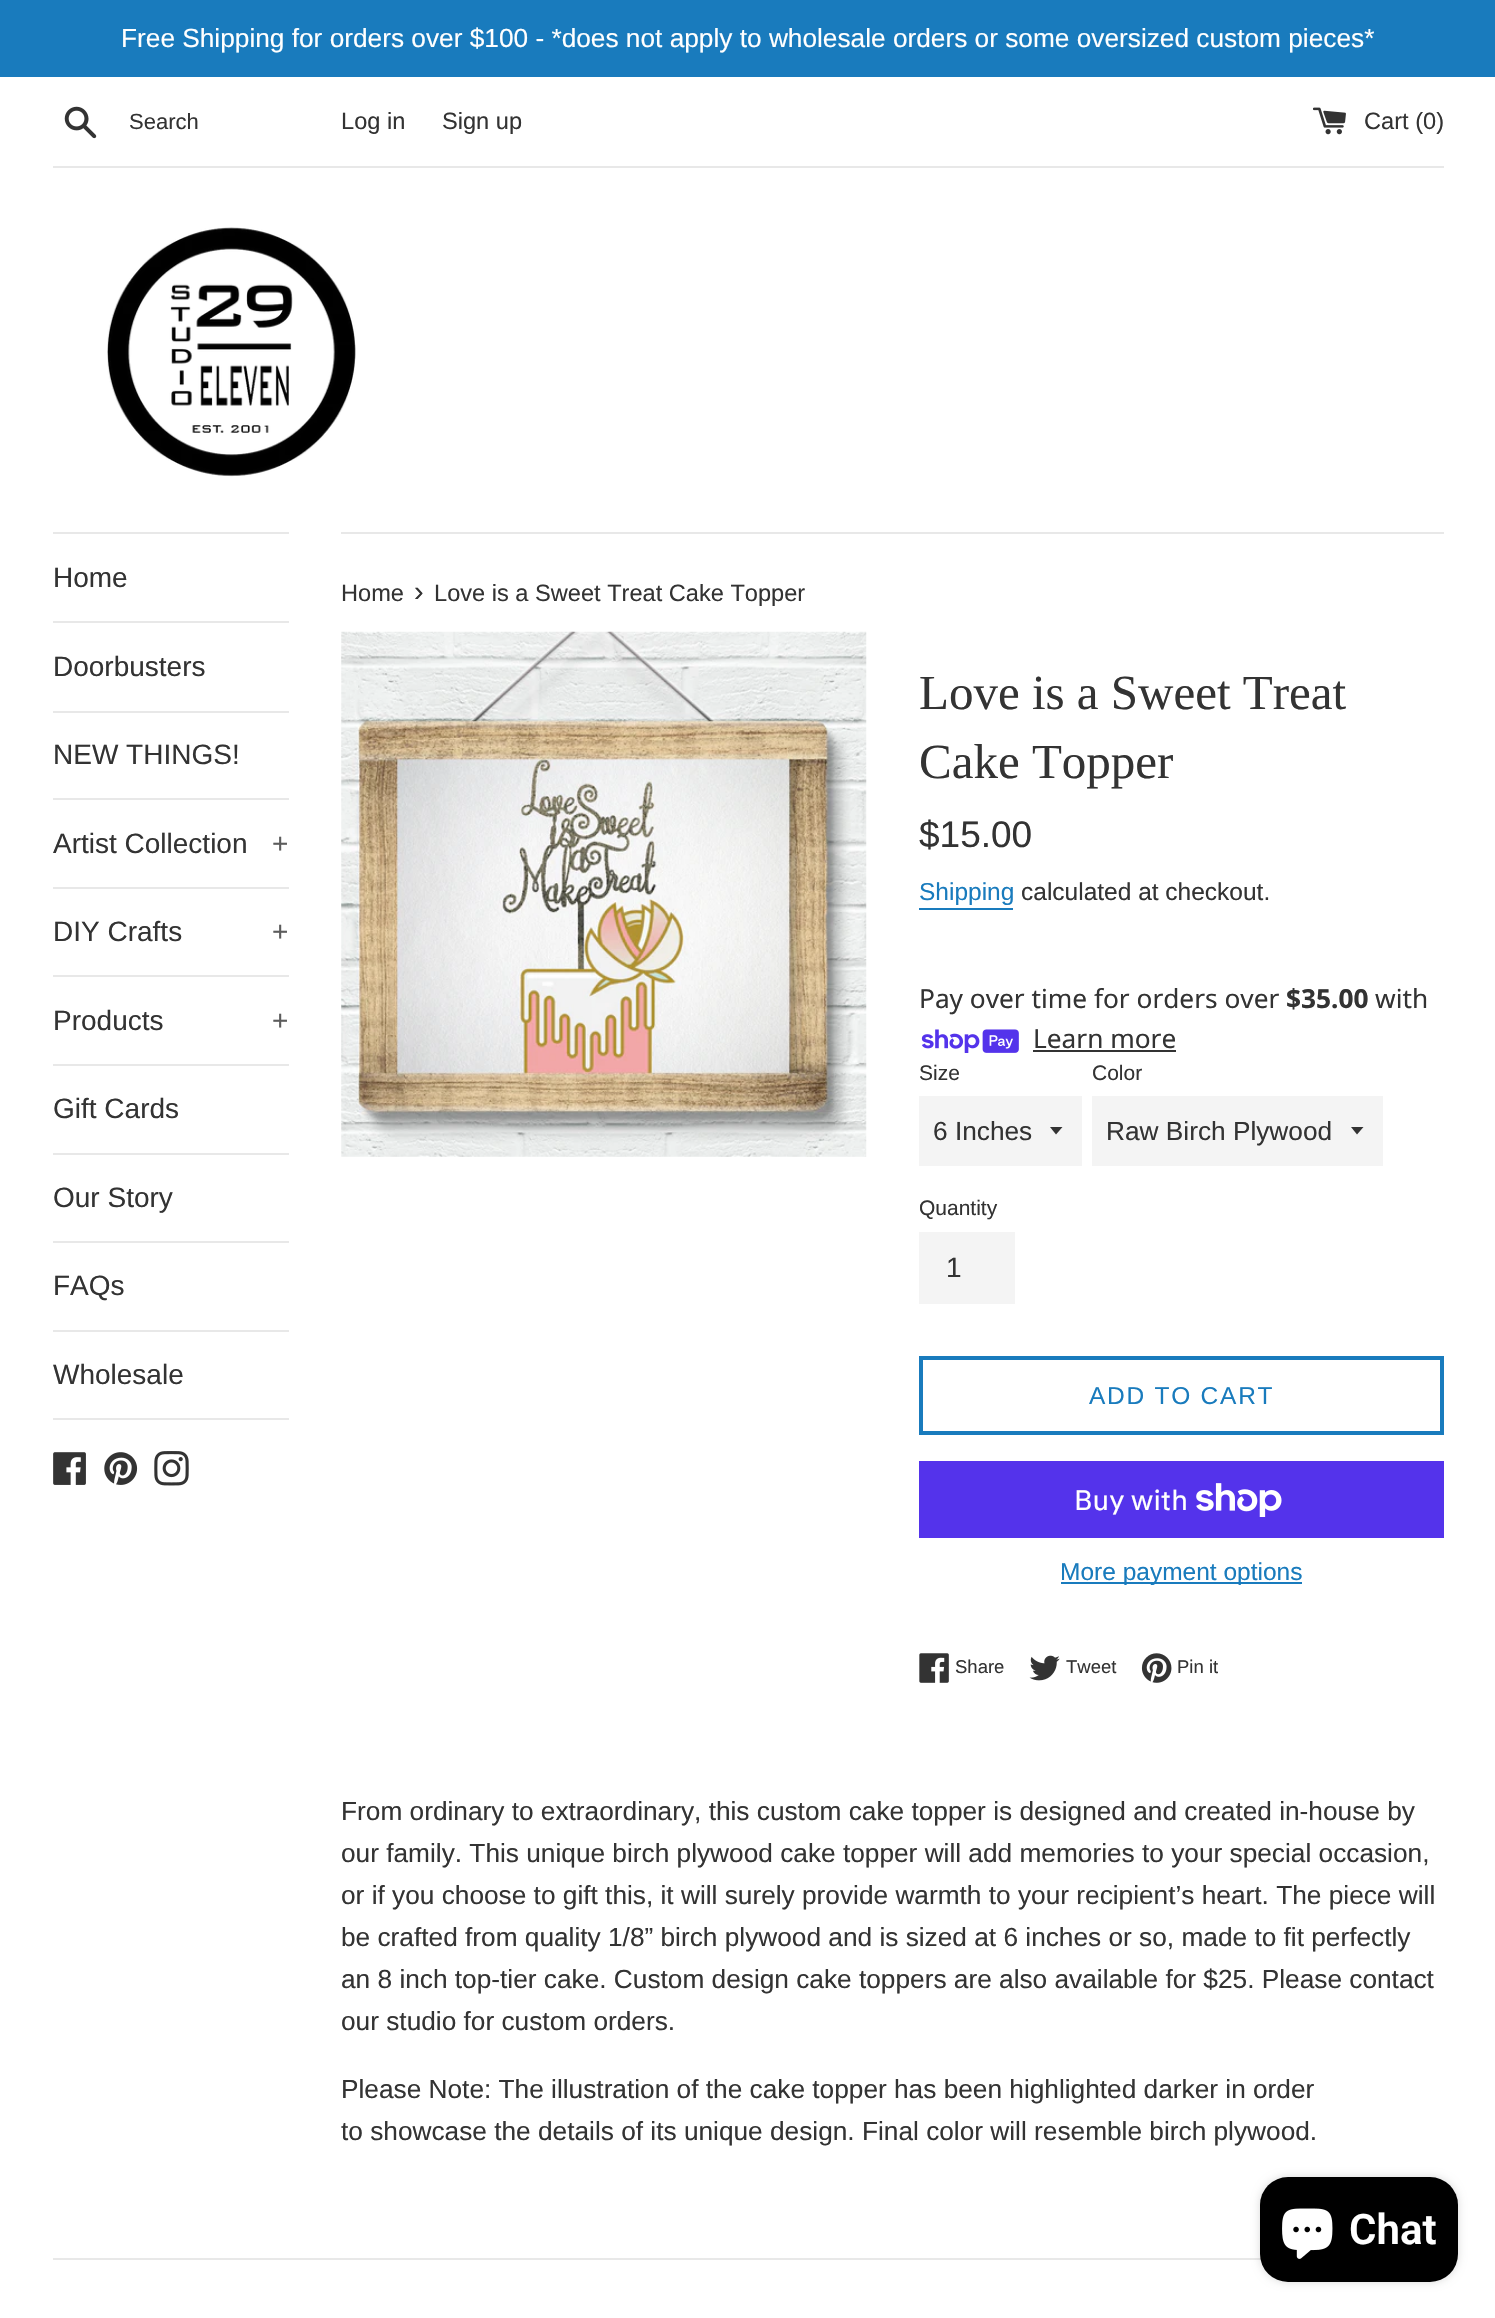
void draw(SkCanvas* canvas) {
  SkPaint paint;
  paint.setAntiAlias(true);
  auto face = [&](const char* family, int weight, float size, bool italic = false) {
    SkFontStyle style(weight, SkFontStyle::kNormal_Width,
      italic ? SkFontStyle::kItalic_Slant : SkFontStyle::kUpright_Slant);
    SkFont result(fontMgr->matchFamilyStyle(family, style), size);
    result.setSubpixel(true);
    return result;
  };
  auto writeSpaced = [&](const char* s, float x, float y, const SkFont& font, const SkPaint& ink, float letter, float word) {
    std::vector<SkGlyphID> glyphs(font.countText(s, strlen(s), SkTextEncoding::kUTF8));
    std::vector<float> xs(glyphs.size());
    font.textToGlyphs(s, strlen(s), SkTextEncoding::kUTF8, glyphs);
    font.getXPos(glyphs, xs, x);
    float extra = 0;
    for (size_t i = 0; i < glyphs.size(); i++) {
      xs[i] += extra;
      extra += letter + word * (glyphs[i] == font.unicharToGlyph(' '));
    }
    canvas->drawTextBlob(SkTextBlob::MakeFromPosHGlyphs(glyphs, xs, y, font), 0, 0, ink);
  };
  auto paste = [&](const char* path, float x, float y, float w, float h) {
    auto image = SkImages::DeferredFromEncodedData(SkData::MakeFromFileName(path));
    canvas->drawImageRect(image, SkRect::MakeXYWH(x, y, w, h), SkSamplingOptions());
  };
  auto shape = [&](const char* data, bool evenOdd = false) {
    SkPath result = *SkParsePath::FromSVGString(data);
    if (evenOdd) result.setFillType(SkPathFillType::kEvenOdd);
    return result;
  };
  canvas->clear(0xffffffff);
  paint.setColor(0xff197bbd);
  canvas->drawRect(SkRect::MakeXYWH(0, 0, 1495, 77), paint);
  paste("img/1.png", 64, 106, 33, 33);
  paste("img/2.png", 1313, 107, 33, 28);
  paint.setColor(0xffe8e8e8);
  canvas->drawRect(SkRect::MakeXYWH(53, 166, 1391, 2), paint);
  paste("img/3.png", 107, 227, 249, 250);
  {
    const struct { float x, y, w, h; SkColor color; } items[] = {
      {53, 532, 236, 2, 0xffe8e8e8},
      {53, 621, 236, 2, 0xffe8e8e8},
      {53, 711, 236, 2, 0xffe8e8e8},
      {53, 798, 236, 2, 0xffe8e8e8},
      {53, 887, 236, 2, 0xffe8e8e8},
      {53, 975, 236, 2, 0xffe8e8e8},
      {53, 1064, 236, 2, 0xffe8e8e8},
      {53, 1153, 236, 2, 0xffe8e8e8},
      {53, 1241, 236, 2, 0xffe8e8e8},
      {53, 1330, 236, 2, 0xffe8e8e8},
      {53, 1418, 236, 2, 0xffe8e8e8},
    };
    for (auto [x, y, w, h, color] : items) {
      paint.setColor(color);
      canvas->drawRect(SkRect::MakeXYWH(x, y, w, h), paint);
    }
  }
  paste("img/4.png", 53, 1452, 33, 33);
  paste("img/5.png", 104, 1452, 34, 33);
  paste("img/6.png", 154, 1451, 35, 35);
  canvas->drawRect(SkRect::MakeXYWH(341, 532, 1103, 2), paint);
  paste("img/7.png", 341, 631, 526, 526);
  paint.setColor(0xff197bbd);
  canvas->drawRect(SkRect::MakeXYWH(919, 908, 94, 2), paint);
  paste("img/8.png", 921, 1029, 98, 24);
  paint.setColor(0xff333333);
  canvas->drawRect(SkRect::MakeXYWH(1033, 1050, 143, 2), paint);
  paint.setColor(0xfff4f4f4);
  canvas->drawRect(SkRect::MakeXYWH(919, 1096, 163, 70), paint);
  paint.setColor(0xff333333);
  canvas->drawPath(shape("M1050 1127L1056 1134.5L1062.5 1127Z"), paint);
  paint.setColor(0xfff4f4f4);
  canvas->drawRect(SkRect::MakeXYWH(1092, 1096, 291, 70), paint);
  paint.setColor(0xff333333);
  canvas->drawPath(shape("M1351 1127L1357 1134.5L1363.5 1127Z"), paint);
  paint.setColor(0xfff4f4f4);
  canvas->drawRect(SkRect::MakeXYWH(919, 1232, 96, 72), paint);
  paint.setStroke(true);
  paint.setStrokeWidth(4);
  paint.setColor(0xff197bbd);
  canvas->drawRect(SkRect::MakeXYWH(921, 1358, 521, 75), paint);
  paint.setStroke(false);
  paint.setColor(0xff5433eb);
  canvas->drawRect(SkRect::MakeXYWH(919, 1461, 525, 77), paint);
  paste("img/9.png", 1196, 1483, 86, 34);
  paint.setColor(0xff197bbd);
  canvas->drawRect(SkRect::MakeXYWH(1061, 1582, 241, 2), paint);
  paste("img/10.png", 919, 1653, 30, 30);
  paste("img/11.png", 1029, 1655, 31, 26);
  paste("img/12.png", 1141, 1653, 31, 30);
  paint.setColor(0xffe8e8e8);
  canvas->drawRect(SkRect::MakeXYWH(53, 2258, 1208, 2), paint);
  paint.setColor(0x26000000);
  paint.setMaskFilter(SkMaskFilter::MakeBlur(kNormal_SkBlurStyle, 4.5f));
  canvas->drawRoundRect(SkRect::MakeXYWH(1260, 2177, 198, 105), 28, 28, paint);
  paint.setMaskFilter(nullptr);
  paint.setColor(0xff000000);
  canvas->drawRoundRect(SkRect::MakeXYWH(1260, 2177, 198, 105), 28, 28, paint);
  paste("img/13.png", 1282, 2208, 51, 51);
  auto f0 = face("Liberation Sans", 400, 26.25f);
  paint.setColor(0xffffffff);
  canvas->drawString("Free Shipping for orders over $100 - *does not apply to wholesale orders or some oversized custom pieces*", 121, 47, f0, paint);
  auto f1 = face("Liberation Sans", 400, 22);
  paint.setColor(0xff333333);
  canvas->drawString("Search", 129, 129, f1, paint);
  auto f2 = face("Liberation Sans", 400, 23.6f);
  {
    const struct { const char* s; float x, y; } items[] = {
      {"Log in", 341, 129},
      {"Sign up", 442, 129},
      {"Cart (0)", 1364, 129},
    };
    for (auto [s, x, y] : items) {
      canvas->drawString(s, x, y, f2, paint);
    }
  }
  auto f3 = face("Liberation Sans", 400, 28);
  {
    const struct { const char* s; float x, y; } items[] = {
      {"Home", 53, 587},
      {"Doorbusters", 53, 676},
      {"NEW THINGS!", 53, 764},
      {"Artist Collection", 53, 853},
    };
    for (auto [s, x, y] : items) {
      canvas->drawString(s, x, y, f3, paint);
    }
  }
  paint.setColor(0xff5c5c5c);
  canvas->drawString("+", 272, 853, f3, paint);
  paint.setColor(0xff333333);
  canvas->drawString("DIY Crafts", 53, 941, f3, paint);
  paint.setColor(0xff5c5c5c);
  canvas->drawString("+", 272, 941, f3, paint);
  paint.setColor(0xff333333);
  canvas->drawString("Products", 53, 1030, f3, paint);
  paint.setColor(0xff5c5c5c);
  canvas->drawString("+", 272, 1030, f3, paint);
  paint.setColor(0xff333333);
  {
    const struct { const char* s; float x, y; } items[] = {
      {"Gift Cards", 53, 1118},
      {"Our Story", 53, 1207},
      {"FAQs", 53, 1295},
      {"Wholesale", 53, 1384},
    };
    for (auto [s, x, y] : items) {
      canvas->drawString(s, x, y, f3, paint);
    }
  }
  canvas->drawString("Home", 341, 601, f2, paint);
  auto f4 = face("Liberation Sans", 400, 29);
  canvas->drawString("›", 414, 601, f4, paint);
  canvas->drawString("Love is a Sweet Treat Cake Topper", 434, 601, f2, paint);
  auto f5 = face("Liberation Serif", 400, 49);
  canvas->drawString("Love is a Sweet Treat", 919, 709, f5, paint);
  canvas->drawString("Cake Topper", 919, 778, f5, paint);
  auto f6 = face("Liberation Sans", 400, 37);
  canvas->drawString("$15.00", 919, 847, f6, paint);
  auto f7 = face("Liberation Sans", 400, 24.5f);
  paint.setColor(0xff197bbd);
  canvas->drawString("Shipping", 919, 900, f7, paint);
  paint.setColor(0xff333333);
  canvas->drawString("calculated at checkout.", 1021, 900, f7, paint);
  auto f8 = face("Noto Sans", 400, 26.25f);
  canvas->drawString("Pay over time for orders over", 919, 1008, f8, paint);
  auto f9 = face("Noto Sans", 700, 26.25f);
  canvas->drawString("$35.00", 1286, 1008, f9, paint);
  canvas->drawString("with", 1375, 1008, f8, paint);
  canvas->drawString("Learn more", 1033, 1048, f8, paint);
  auto f10 = face("Liberation Sans", 400, 21);
  canvas->drawString("Size", 919, 1080, f10, paint);
  canvas->drawString("6 Inches", 933, 1140, f0, paint);
  canvas->drawString("Color", 1092, 1080, f10, paint);
  canvas->drawString("Raw Birch Plywood", 1106, 1140, f0, paint);
  canvas->drawString("Quantity", 919, 1215, f10, paint);
  canvas->drawString("1", 946, 1277, f3, paint);
  paint.setColor(0xff197bbd);
  writeSpaced("ADD TO CART", 1089, 1404, f7, paint, 1.75f, 0);
  auto f11 = face("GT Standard", 400, 28);
  paint.setColor(0xffffffff);
  canvas->drawString("Buy with", 1074, 1510, f11, paint);
  paint.setColor(0xff197bbd);
  canvas->drawString("More payment options", 1060, 1580, f7, paint);
  auto f12 = face("Liberation Sans", 400, 18.5f);
  paint.setColor(0xff333333);
  {
    const struct { const char* s; float x, y; } items[] = {
      {"Share", 955, 1673},
      {"Tweet", 1066, 1673},
      {"Pin it", 1177, 1673},
    };
    for (auto [s, x, y] : items) {
      canvas->drawString(s, x, y, f12, paint);
    }
  }
  {
    const struct { const char* s; float x, y; } items[] = {
      {"From ordinary to extraordinary, this custom cake topper is designed and created in-house by", 341, 1820},
      {"our family. This unique birch plywood cake topper will add memories to your special occasion,", 341, 1862},
      {"or if you choose to gift this, it will surely provide warmth to your recipient’s heart. The piece will", 341, 1904},
      {"be crafted from quality 1/8” birch plywood and is sized at 6 inches or so, made to fit perfectly", 341, 1946},
      {"an 8 inch top-tier cake. Custom design cake toppers are also available for $25. Please contact", 341, 1988},
      {"our studio for custom orders.", 341, 2030},
      {"Please Note: The illustration of the cake topper has been highlighted darker in order", 341, 2098},
      {"to showcase the details of its unique design. Final color will resemble birch plywood.", 341, 2140},
    };
    for (auto [s, x, y] : items) {
      canvas->drawString(s, x, y, f0, paint);
    }
  }
  auto f13 = face("Roboto", 600, 42);
  paint.setColor(0xffffffff);
  canvas->drawString("Chat", 1349, 2244, f13, paint);
}
